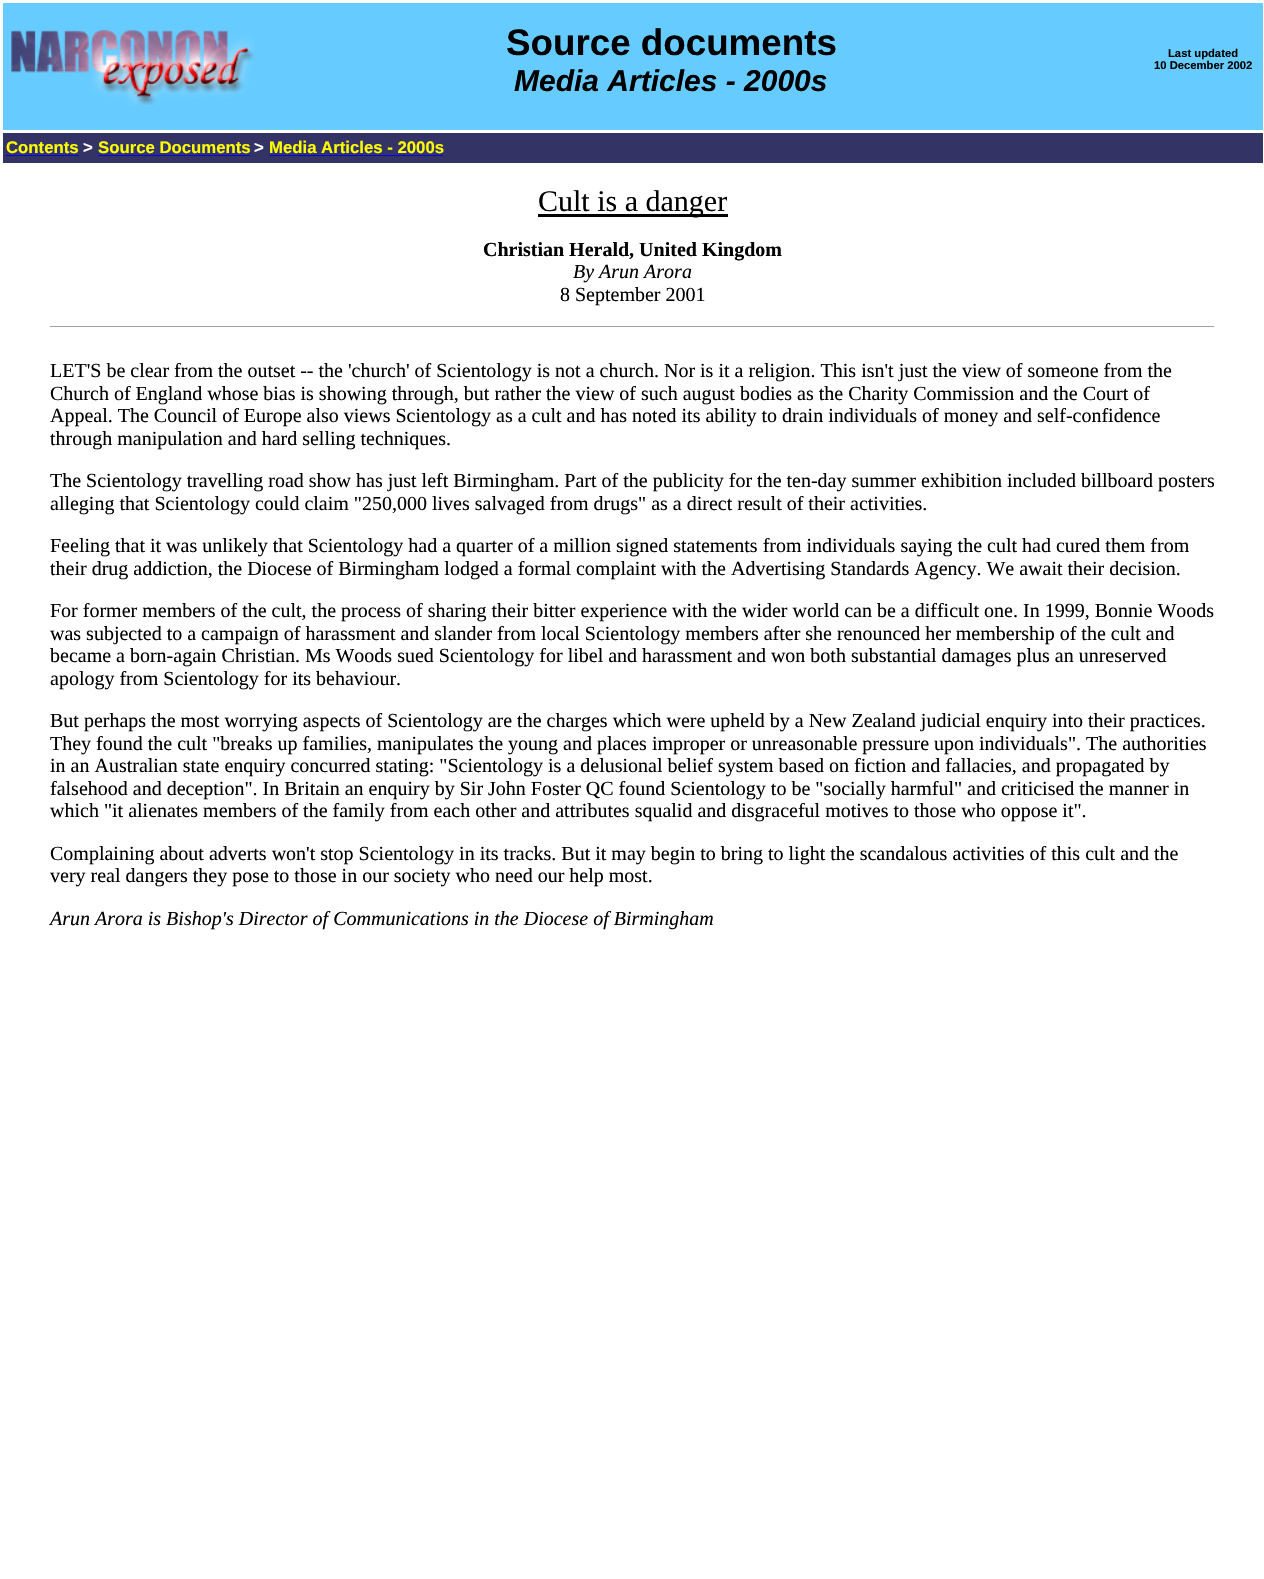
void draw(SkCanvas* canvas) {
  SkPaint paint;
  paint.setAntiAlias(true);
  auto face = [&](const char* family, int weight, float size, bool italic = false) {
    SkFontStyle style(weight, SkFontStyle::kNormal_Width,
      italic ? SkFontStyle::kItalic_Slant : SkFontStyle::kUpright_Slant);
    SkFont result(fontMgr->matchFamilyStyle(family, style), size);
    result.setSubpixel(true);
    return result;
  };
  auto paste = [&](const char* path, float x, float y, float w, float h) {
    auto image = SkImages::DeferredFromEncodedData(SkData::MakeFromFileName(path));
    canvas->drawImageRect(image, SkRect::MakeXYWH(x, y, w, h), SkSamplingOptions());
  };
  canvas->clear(0xffffffff);
  paint.setColor(0xff66ccff);
  canvas->drawRect(SkRect::MakeXYWH(3, 3, 1260, 127), paint);
  paste("img/1.png", 11, 29, 244, 77);
  {
    const struct { float x, y, w, h; SkColor color; } items[] = {
      {3, 133, 1260, 30, 0xff333366},
      {6, 155, 73, 1, 0xff0000ee},
      {98, 155, 152, 1, 0xff0000ee},
      {269, 155, 174, 1, 0xff0000ee},
      {538, 214, 190, 3, 0xff000000},
      {50, 326, 1165, 1, 0xff9f9f9f},
      {1214, 326, 1, 1, 0xffeeeeee},
    };
    for (auto [x, y, w, h, color] : items) {
      paint.setColor(color);
      canvas->drawRect(SkRect::MakeXYWH(x, y, w, h), paint);
    }
  }
  auto f0 = face("Liberation Sans", 700, 36.75f);
  paint.setColor(0xff000000);
  canvas->drawString("Source documents", 506, 55, f0, paint);
  auto f1 = face("Liberation Sans", 700, 30, true);
  canvas->drawString("Media Articles - 2000s", 514, 91, f1, paint);
  auto f2 = face("Liberation Sans", 700, 11.25f);
  canvas->drawString("Last updated", 1168, 57, f2, paint);
  canvas->drawString("10 December 2002", 1154, 69, f2, paint);
  auto f3 = face("Liberation Sans", 700, 16.75f);
  paint.setColor(0xffffff00);
  canvas->drawString("Contents", 6, 153, f3, paint);
  paint.setColor(0xffffffff);
  canvas->drawString(">", 83, 153, f3, paint);
  paint.setColor(0xffffff00);
  canvas->drawString("Source Documents", 98, 153, f3, paint);
  paint.setColor(0xffffffff);
  canvas->drawString(">", 254, 153, f3, paint);
  paint.setColor(0xffffff00);
  canvas->drawString("Media Articles - 2000s", 269, 153, f3, paint);
  auto f4 = face("Liberation Serif", 400, 30);
  paint.setColor(0xff000000);
  canvas->drawString("Cult is a danger", 538, 211, f4, paint);
  auto f5 = face("Liberation Serif", 700, 20);
  canvas->drawString("Christian Herald, United Kingdom", 483, 256, f5, paint);
  auto f6 = face("Liberation Serif", 400, 20, true);
  canvas->drawString("By Arun Arora", 573, 278, f6, paint);
  auto f7 = face("Liberation Serif", 400, 20);
  {
    const struct { const char* s; float x, y; } items[] = {
      {"8 September 2001", 560, 301},
      {"LET'S be clear from the outset -- the 'church' of Scientology is not a church. Nor is it a religion. This isn't just the view of someone from the", 50, 377},
      {"Church of England whose bias is showing through, but rather the view of such august bodies as the Charity Commission and the Court of", 50, 400},
      {"Appeal. The Council of Europe also views Scientology as a cult and has noted its ability to drain individuals of money and self-confidence", 50, 422},
      {"through manipulation and hard selling techniques.", 50, 445},
      {"The Scientology travelling road show has just left Birmingham. Part of the publicity for the ten-day summer exhibition included billboard posters", 50, 487},
      {"alleging that Scientology could claim \"250,000 lives salvaged from drugs\" as a direct result of their activities.", 50, 510},
      {"Feeling that it was unlikely that Scientology had a quarter of a million signed statements from individuals saying the cult had cured them from", 50, 552},
      {"their drug addiction, the Diocese of Birmingham lodged a formal complaint with the Advertising Standards Agency. We await their decision.", 50, 575},
      {"For former members of the cult, the process of sharing their bitter experience with the wider world can be a difficult one. In 1999, Bonnie Woods", 50, 617},
      {"was subjected to a campaign of harassment and slander from local Scientology members after she renounced her membership of the cult and", 50, 640},
      {"became a born-again Christian. Ms Woods sued Scientology for libel and harassment and won both substantial damages plus an unreserved", 50, 662},
      {"apology from Scientology for its behaviour.", 50, 685},
      {"But perhaps the most worrying aspects of Scientology are the charges which were upheld by a New Zealand judicial enquiry into their practices.", 50, 727},
      {"They found the cult \"breaks up families, manipulates the young and places improper or unreasonable pressure upon individuals\". The authorities", 50, 750},
      {"in an Australian state enquiry concurred stating: \"Scientology is a delusional belief system based on fiction and fallacies, and propagated by", 50, 772},
      {"falsehood and deception\". In Britain an enquiry by Sir John Foster QC found Scientology to be \"socially harmful\" and criticised the manner in", 50, 795},
      {"which \"it alienates members of the family from each other and attributes squalid and disgraceful motives to those who oppose it\".", 50, 817},
      {"Complaining about adverts won't stop Scientology in its tracks. But it may begin to bring to light the scandalous activities of this cult and the", 50, 860},
      {"very real dangers they pose to those in our society who need our help most.", 50, 882},
    };
    for (auto [s, x, y] : items) {
      canvas->drawString(s, x, y, f7, paint);
    }
  }
  canvas->drawString("Arun Arora is Bishop's Director of Communications in the Diocese of Birmingham", 50, 925, f6, paint);
}
